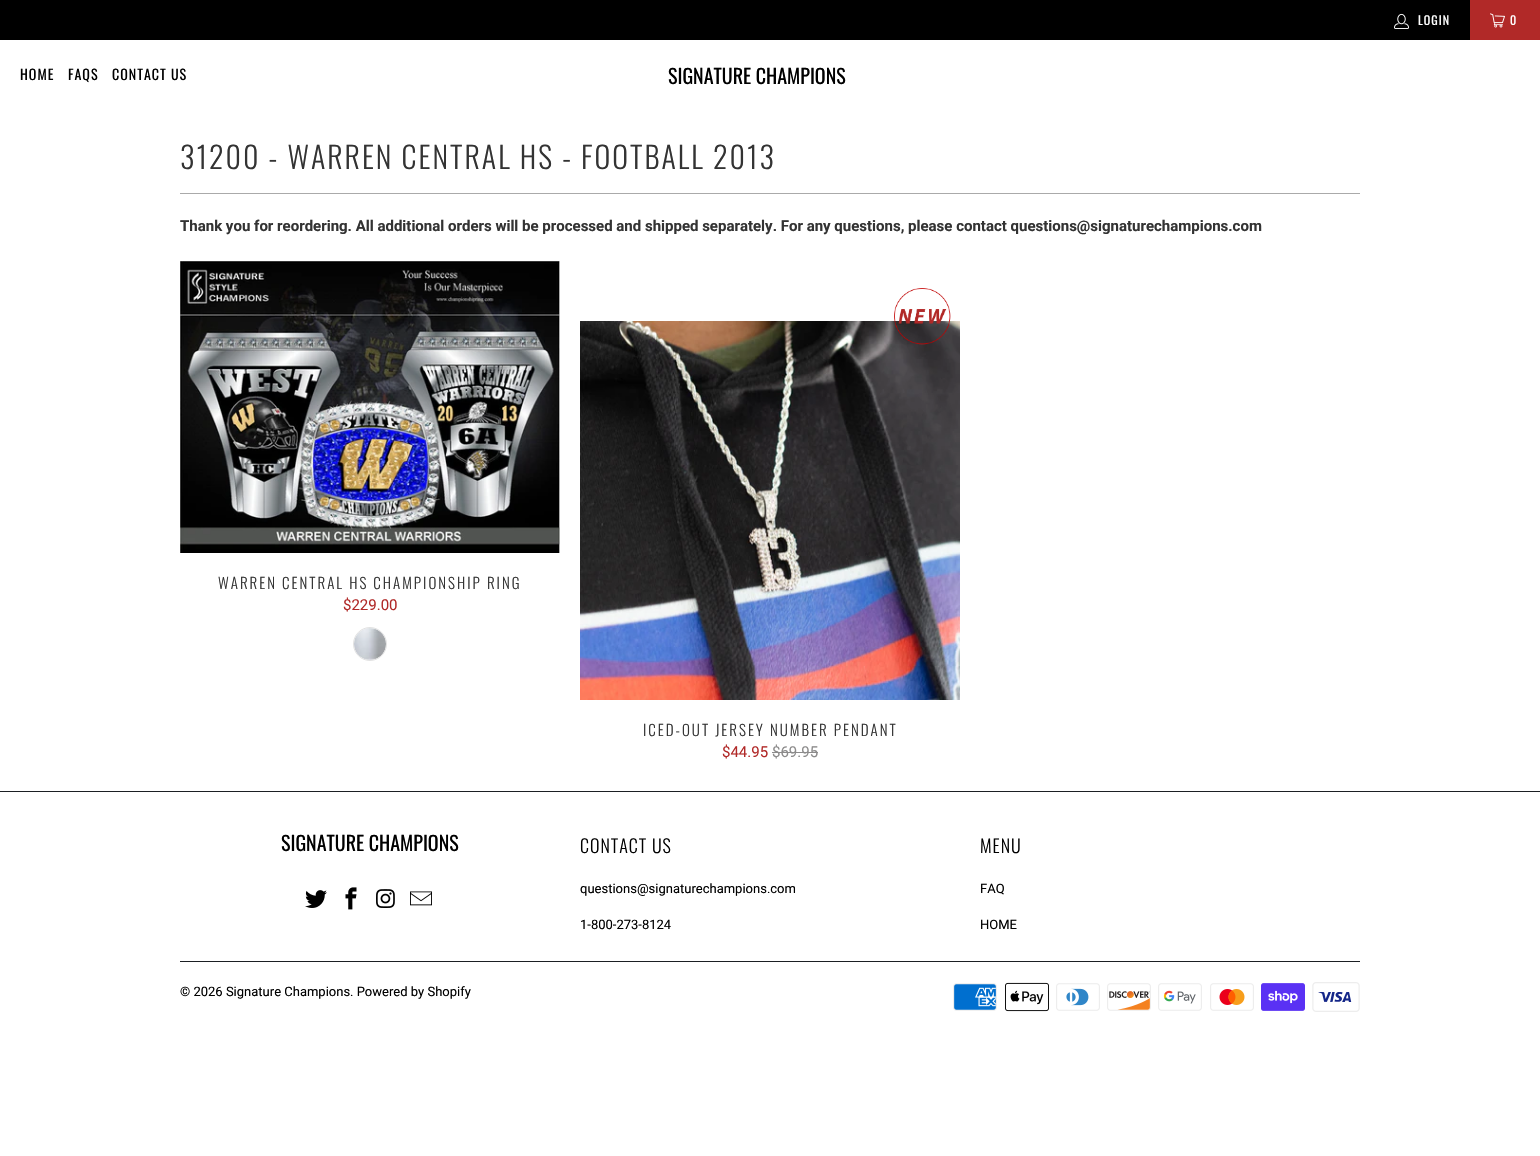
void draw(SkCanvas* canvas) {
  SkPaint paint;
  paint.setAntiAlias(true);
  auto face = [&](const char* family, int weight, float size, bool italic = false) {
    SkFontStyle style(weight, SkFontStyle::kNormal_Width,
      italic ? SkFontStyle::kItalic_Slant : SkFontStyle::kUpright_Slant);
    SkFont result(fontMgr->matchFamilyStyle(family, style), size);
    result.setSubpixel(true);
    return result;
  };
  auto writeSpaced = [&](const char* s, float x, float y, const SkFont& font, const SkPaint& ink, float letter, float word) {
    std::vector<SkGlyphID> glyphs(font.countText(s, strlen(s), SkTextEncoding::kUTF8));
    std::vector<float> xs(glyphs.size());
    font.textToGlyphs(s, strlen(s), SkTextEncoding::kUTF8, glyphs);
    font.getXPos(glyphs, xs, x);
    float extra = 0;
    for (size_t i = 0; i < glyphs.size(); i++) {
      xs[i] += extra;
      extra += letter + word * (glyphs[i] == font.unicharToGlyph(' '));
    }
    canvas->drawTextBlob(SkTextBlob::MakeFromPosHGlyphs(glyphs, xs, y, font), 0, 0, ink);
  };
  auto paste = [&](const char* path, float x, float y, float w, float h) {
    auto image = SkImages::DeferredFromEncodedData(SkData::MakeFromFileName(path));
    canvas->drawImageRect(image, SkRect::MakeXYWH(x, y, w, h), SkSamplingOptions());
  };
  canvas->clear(0xffffffff);
  paint.setColor(0xff000000);
  canvas->drawRect(SkRect::MakeXYWH(0, 0, 1470, 40), paint);
  paste("img/1.png", 1394, 13, 15, 16);
  paint.setColor(0xffb12928);
  canvas->drawRect(SkRect::MakeXYWH(1470, 0, 70, 40), paint);
  paste("img/2.png", 1490, 13, 15, 15);
  paint.setColor(0xffaaaaaa);
  canvas->drawRect(SkRect::MakeXYWH(180, 193, 1180, 1), paint);
  paste("img/3.png", 180, 261, 380, 292);
  paste("img/4.png", 354, 628, 32, 32);
  paint.setStroke(true);
  paint.setStrokeWidth(1);
  paint.setColor(0xffe2e2e2);
  canvas->drawCircle(370, 644, 16.5f, paint);
  paste("img/6.png", 580, 321, 380, 379);
  paste("img/5.png", 894, 288, 57, 57);
  paint.setStroke(false);
  paint.setColor(0xff8c8b8b);
  canvas->drawRect(SkRect::MakeXYWH(772, 752, 46, 1), paint);
  paint.setColor(0xff1b1f23);
  canvas->drawRect(SkRect::MakeXYWH(0, 791, 1540, 1), paint);
  paste("img/7.png", 305, 890, 22, 18);
  paste("img/8.png", 345, 887, 12, 23);
  paste("img/9.png", 376, 889, 19, 19);
  paste("img/10.png", 410, 891, 22, 15);
  canvas->drawRect(SkRect::MakeXYWH(180, 961, 1180, 1), paint);
  paste("img/11.png", 953, 983, 44, 28);
  paste("img/12.png", 1005, 982, 44, 30);
  paste("img/13.png", 1056, 983, 44, 28);
  paste("img/14.png", 1107, 983, 44, 28);
  paste("img/15.png", 1158, 983, 44, 28);
  paste("img/16.png", 1210, 983, 44, 28);
  paste("img/17.png", 1261, 983, 44, 28);
  paste("img/18.png", 1312, 982, 48, 30);
  auto f0 = face("Oswald", 400, 12);
  paint.setColor(0xffffffff);
  writeSpaced("LOGIN", 1418, 25, f0, paint, 1, 0);
  writeSpaced("0", 1510, 25, f0, paint, 1, 0);
  auto f1 = face("Oswald", 400, 14);
  paint.setColor(0xff000000);
  {
    const struct { const char* s; float x, y; } items[] = {
      {"HOME", 20, 80},
      {"FAQS", 68, 80},
      {"CONTACT US", 112, 80},
    };
    for (auto [s, x, y] : items) {
      writeSpaced(s, x, y, f1, paint, 1, 0);
    }
  }
  auto f2 = face("Oswald", 400, 20);
  canvas->drawString("SIGNATURE CHAMPIONS", 668, 84, f2, paint);
  auto f3 = face("Oswald", 300, 30);
  paint.setColor(0xff333333);
  writeSpaced("31200 - WARREN CENTRAL HS - FOOTBALL 2013", 180, 169, f3, paint, 2, 0);
  auto f4 = face("Roboto", 700, 15);
  canvas->drawString("Thank you for reordering. All additional orders will be processed and shipped separately. For any questions, please contact questions@signaturechampions.com", 180, 231, f4, paint);
  auto f5 = face("Oswald", 300, 15);
  writeSpaced("WARREN CENTRAL HS CHAMPIONSHIP RING", 218, 589, f5, paint, 2, 0);
  auto f6 = face("Roboto", 400, 15);
  paint.setColor(0xffb12928);
  canvas->drawString("$229.00", 343, 610, f6, paint);
  paint.setColor(0xff333333);
  writeSpaced("ICED-OUT JERSEY NUMBER PENDANT", 643, 736, f5, paint, 2, 0);
  paint.setColor(0xffb12928);
  canvas->drawString("$44.95", 722, 757, f6, paint);
  paint.setColor(0xff8c8b8b);
  canvas->drawString("$69.95", 772, 757, f6, paint);
  paint.setColor(0xff000000);
  canvas->drawString("SIGNATURE CHAMPIONS", 281, 851, f2, paint);
  auto f7 = face("Oswald", 300, 18);
  writeSpaced("CONTACT US", 580, 853, f7, paint, 1, 0);
  auto f8 = face("Roboto", 400, 13);
  canvas->drawString("questions@signaturechampions.com", 580, 893, f8, paint);
  canvas->drawString("1-800-273-8124", 580, 929, f8, paint);
  writeSpaced("MENU", 980, 853, f7, paint, 1, 0);
  {
    const struct { const char* s; float x, y; } items[] = {
      {"FAQ", 980, 893},
      {"HOME", 980, 929},
      {"© 2026 Signature Champions", 180, 996},
      {". Powered by Shopify", 350, 996},
    };
    for (auto [s, x, y] : items) {
      canvas->drawString(s, x, y, f8, paint);
    }
  }
}
